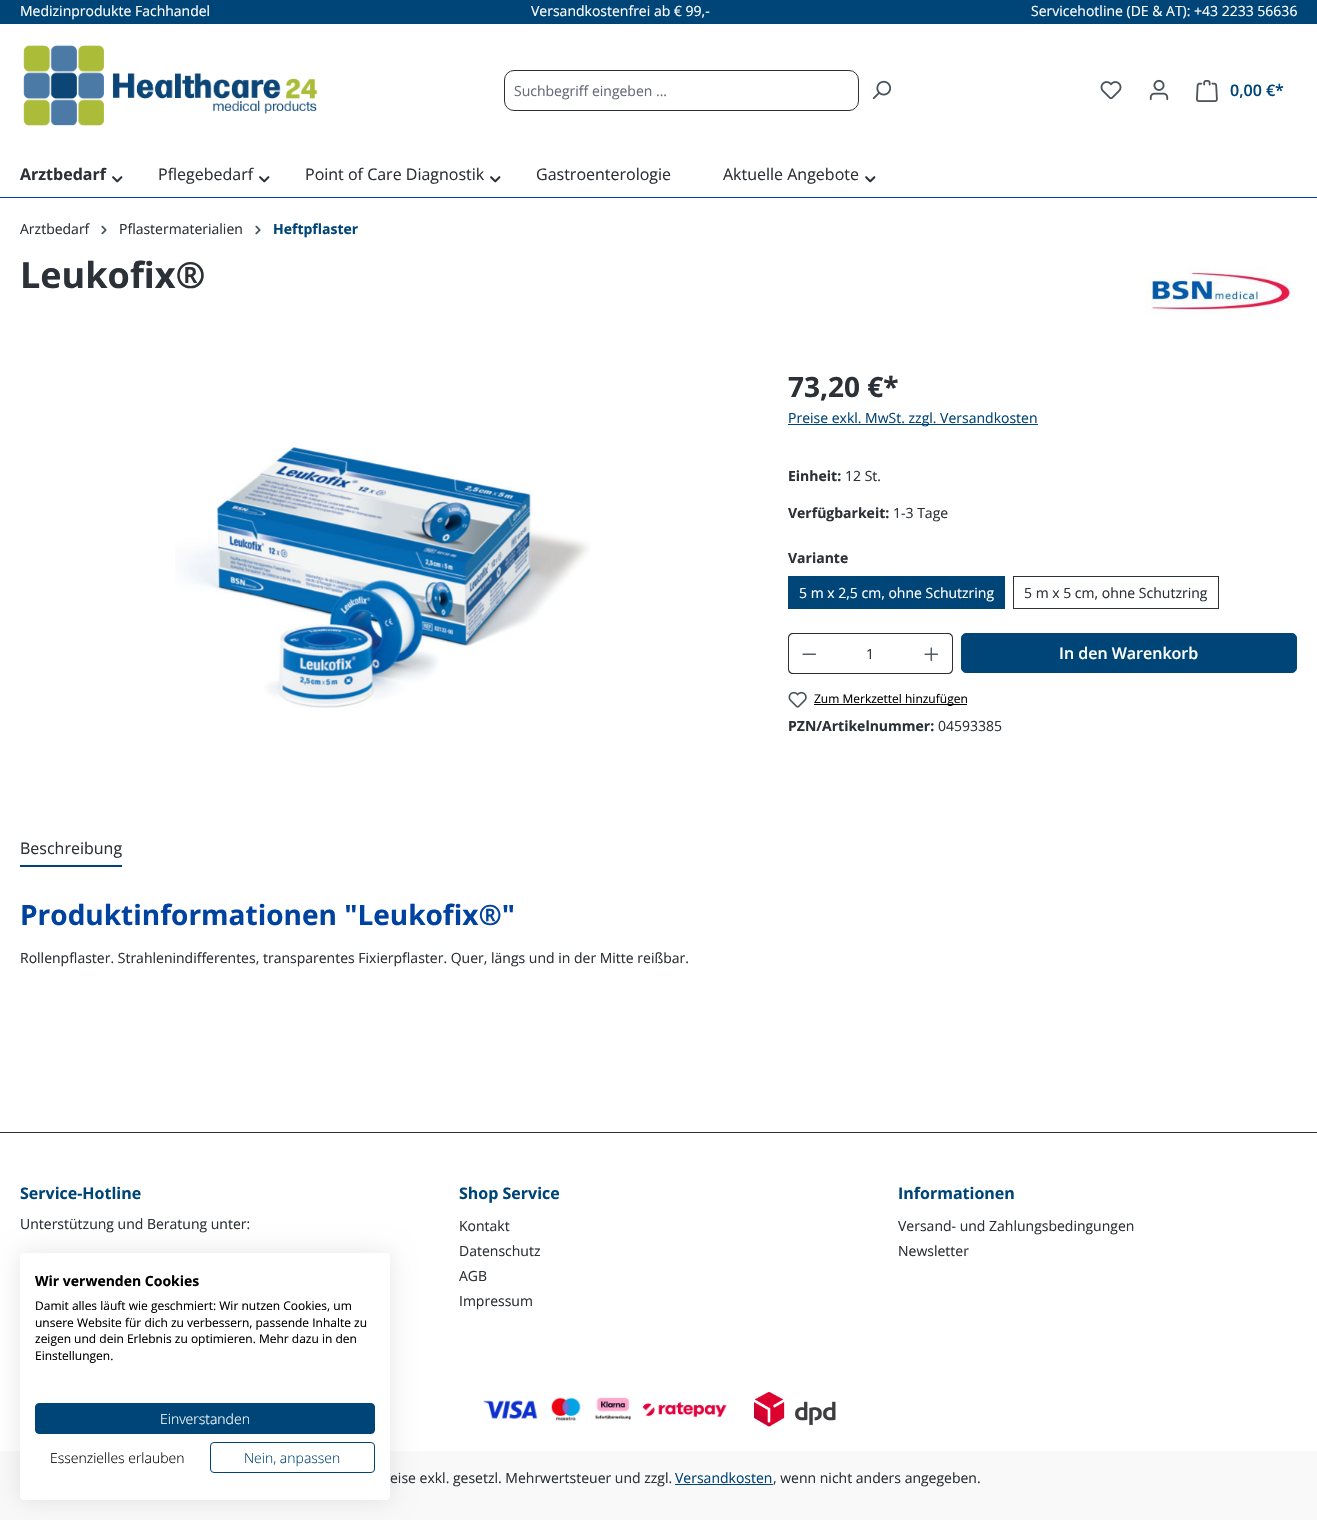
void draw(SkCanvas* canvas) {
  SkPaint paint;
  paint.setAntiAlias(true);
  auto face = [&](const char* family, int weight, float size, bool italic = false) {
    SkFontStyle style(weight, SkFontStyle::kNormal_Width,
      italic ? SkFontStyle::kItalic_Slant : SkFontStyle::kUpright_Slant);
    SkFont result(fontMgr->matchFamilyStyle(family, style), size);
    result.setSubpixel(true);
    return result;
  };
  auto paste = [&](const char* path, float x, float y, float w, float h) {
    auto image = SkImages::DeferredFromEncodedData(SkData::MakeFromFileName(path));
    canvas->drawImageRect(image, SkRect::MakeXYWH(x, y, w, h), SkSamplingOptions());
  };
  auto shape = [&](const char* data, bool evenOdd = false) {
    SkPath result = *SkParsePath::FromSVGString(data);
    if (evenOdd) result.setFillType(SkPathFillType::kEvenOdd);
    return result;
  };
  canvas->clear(0xffffffff);
  paint.setColor(0xff004577);
  canvas->drawRect(SkRect::MakeXYWH(0, 0, 1317, 24), paint);
  paste("img/1.png", 23, 45, 295, 81);
  paint.setStroke(true);
  paint.setStrokeWidth(1);
  paint.setColor(0xff2b3136);
  canvas->drawRoundRect(SkRect::MakeXYWH(504.5f, 70.5f, 354, 40), 9.5f, 9.5f, paint);
  paste("img/2.png", 872, 80, 20, 20);
  paste("img/3.png", 1100, 81, 22, 19);
  paste("img/4.png", 1149, 79, 20, 22);
  paste("img/5.png", 1196, 80, 22, 22);
  paint.setStroke(false);
  paint.setColor(0xff0042a0);
  canvas->drawRect(SkRect::MakeXYWH(0, 197, 1317, 1), paint);
  paste("img/6.png", 112, 176, 11, 7);
  paste("img/6.png", 259, 176, 11, 7);
  paste("img/6.png", 490, 176, 11, 7);
  paste("img/6.png", 865, 176, 11, 7);
  paste("img/7.png", 101, 225, 6, 10);
  paste("img/7.png", 255, 225, 6, 10);
  paste("img/8.png", 1145, 267, 146, 49);
  paste("img/9.png", 175, 442, 415, 266);
  paint.setColor(0xff004577);
  canvas->drawRect(SkRect::MakeXYWH(788, 424, 250, 1), paint);
  canvas->drawRect(SkRect::MakeXYWH(788, 576, 217, 33), paint);
  paint.setStroke(true);
  paint.setColor(0xff2b3136);
  canvas->drawRect(SkRect::MakeXYWH(1013.5f, 576.5f, 205, 32), paint);
  paint.setStroke(false);
  canvas->drawRect(SkRect::MakeXYWH(829, 633, 83, 1), paint);
  canvas->drawRect(SkRect::MakeXYWH(829, 673, 83, 1), paint);
  canvas->drawPath(shape("M793 633H830V674H793C790 674 788 672 788 669V638C788 635 790 633 793 633ZM793 634H830V673H793C791 673 789 671 789 669V638C789 636 791 634 793 634Z", true), paint);
  paste("img/10.png", 802, 653, 15, 2);
  canvas->drawPath(shape("M911 633H948C951 633 953 635 953 638V669C953 672 951 674 948 674H911ZM911 634H948C950 634 952 636 952 638V669C952 671 950 673 948 673H911Z", true), paint);
  paste("img/11.png", 924, 647, 15, 15);
  paint.setColor(0xff004577);
  canvas->drawRoundRect(SkRect::MakeXYWH(961.5f, 633.5f, 335, 39), 4.5f, 4.5f, paint);
  paint.setStroke(true);
  canvas->drawRoundRect(SkRect::MakeXYWH(961.5f, 633.5f, 335, 39), 4.5f, 4.5f, paint);
  paste("img/12.png", 788, 691, 19, 17);
  paint.setStroke(false);
  {
    const struct { float x, y, w, h; SkColor color; } items[] = {
      {814, 704, 153, 1, 0xff000000},
      {20, 865, 102, 2, 0xff004577},
      {0, 1132, 1317, 1, 0xff2b3136},
    };
    for (auto [x, y, w, h, color] : items) {
      paint.setColor(color);
      canvas->drawRect(SkRect::MakeXYWH(x, y, w, h), paint);
    }
  }
  paste("img/13.png", 483, 1397, 244, 24);
  paste("img/14.png", 754, 1392, 82, 35);
  paint.setColor(0xfff9f9f9);
  canvas->drawRect(SkRect::MakeXYWH(0, 1451, 1317, 69), paint);
  paint.setColor(0xff004577);
  canvas->drawRect(SkRect::MakeXYWH(675, 1484, 98, 1), paint);
  paint.setColor(0x1a000000);
  paint.setMaskFilter(SkMaskFilter::MakeBlur(kNormal_SkBlurStyle, 12));
  canvas->drawRoundRect(SkRect::MakeXYWH(20, 1253, 370, 247), 4, 4, paint);
  paint.setMaskFilter(nullptr);
  paint.setColor(0xffffffff);
  canvas->drawRoundRect(SkRect::MakeXYWH(20, 1253, 370, 247), 4, 4, paint);
  paint.setColor(0xff004577);
  canvas->drawRoundRect(SkRect::MakeXYWH(35.5f, 1403.5f, 339, 30), 3.5f, 3.5f, paint);
  paint.setStroke(true);
  canvas->drawRoundRect(SkRect::MakeXYWH(35.5f, 1403.5f, 339, 30), 3.5f, 3.5f, paint);
  canvas->drawRoundRect(SkRect::MakeXYWH(210.5f, 1442.5f, 164, 30), 3.5f, 3.5f, paint);
  auto f0 = face("Open Sans", 400, 14);
  paint.setStroke(false);
  paint.setColor(0xffffffff);
  {
    const struct { const char* s; float x, y; } items[] = {
      {"Medizinprodukte Fachhandel", 20, 16},
      {"Versandkostenfrei ab € 99,-", 531, 16},
      {"Servicehotline (DE & AT): +43 2233 56636", 1031, 16},
    };
    for (auto [s, x, y] : items) {
      canvas->drawString(s, x, y, f0, paint);
    }
  }
  paint.setColor(0xff666977);
  canvas->drawString("Suchbegriff eingeben ...", 514, 96, f0, paint);
  auto f1 = face("Open Sans", 600, 16);
  paint.setColor(0xff004577);
  canvas->drawString("0,00 €*", 1230, 96, f1, paint);
  auto f2 = face("Open Sans", 700, 16);
  paint.setColor(0xff2b3136);
  canvas->drawString("Arztbedarf", 20, 180, f2, paint);
  auto f3 = face("Open Sans", 400, 16);
  {
    const struct { const char* s; float x, y; } items[] = {
      {"Pflegebedarf", 158, 180},
      {"Point of Care Diagnostik", 305, 180},
      {"Gastroenterologie", 536, 180},
      {"Aktuelle Angebote", 723, 180},
    };
    for (auto [s, x, y] : items) {
      canvas->drawString(s, x, y, f3, paint);
    }
  }
  canvas->drawString("Arztbedarf", 20, 234, f0, paint);
  canvas->drawString("Pflastermaterialien", 119, 234, f0, paint);
  auto f4 = face("Open Sans", 700, 14);
  paint.setColor(0xff004577);
  canvas->drawString("Heftpflaster", 273, 234, f4, paint);
  auto f5 = face("Open Sans", 700, 36);
  paint.setColor(0xff2b3136);
  canvas->drawString("Leukofix®", 20, 288, f5, paint);
  auto f6 = face("Open Sans", 700, 28);
  canvas->drawString("73,20 €*", 788, 397, f6, paint);
  paint.setColor(0xff004577);
  canvas->drawString("Preise exkl. MwSt. zzgl. Versandkosten", 788, 423, f0, paint);
  paint.setColor(0xff2b3136);
  canvas->drawString("Einheit:", 788, 481, f4, paint);
  canvas->drawString("12 St.", 845, 481, f0, paint);
  canvas->drawString("Verfügbarkeit:", 788, 518, f4, paint);
  canvas->drawString("1-3 Tage", 893, 518, f0, paint);
  canvas->drawString("Variante", 788, 563, f4, paint);
  paint.setColor(0xffffffff);
  canvas->drawString("5 m x 2,5 cm, ohne Schutzring", 799, 598, f0, paint);
  paint.setColor(0xff2b3136);
  canvas->drawString("5 m x 5 cm, ohne Schutzring", 1024, 598, f0, paint);
  canvas->drawString("1", 866, 659, f0, paint);
  paint.setColor(0xffffffff);
  canvas->drawString("In den Warenkorb", 1059, 659, f1, paint);
  auto f7 = face("Open Sans", 400, 12);
  paint.setColor(0xff000000);
  canvas->drawString("Zum Merkzettel hinzufügen", 814, 703, f7, paint);
  paint.setColor(0xff2b3136);
  canvas->drawString("PZN/Artikelnummer:", 788, 731, f4, paint);
  canvas->drawString("04593385", 938, 731, f0, paint);
  canvas->drawString("Beschreibung", 20, 854, f3, paint);
  paint.setColor(0xff0042a0);
  canvas->drawString("Produktinformationen \"Leukofix®\"", 20, 925, f6, paint);
  paint.setColor(0xff2b3136);
  canvas->drawString("Rollenpflaster. Strahlenindifferentes, transparentes Fixierpflaster. Quer, längs und in der Mitte reißbar.", 20, 963, f0, paint);
  paint.setColor(0xff004577);
  canvas->drawString("Service-Hotline", 20, 1199, f2, paint);
  paint.setColor(0xff2b3136);
  canvas->drawString("Unterstützung und Beratung unter:", 20, 1229, f0, paint);
  paint.setColor(0xff004577);
  canvas->drawString("Shop Service", 459, 1199, f2, paint);
  paint.setColor(0xff2b3136);
  {
    const struct { const char* s; float x, y; } items[] = {
      {"Kontakt", 459, 1231},
      {"Datenschutz", 459, 1256},
      {"AGB", 459, 1281},
      {"Impressum", 459, 1306},
    };
    for (auto [s, x, y] : items) {
      canvas->drawString(s, x, y, f0, paint);
    }
  }
  paint.setColor(0xff004577);
  canvas->drawString("Informationen", 898, 1199, f2, paint);
  paint.setColor(0xff2b3136);
  {
    const struct { const char* s; float x, y; } items[] = {
      {"Versand- und Zahlungsbedingungen", 898, 1231},
      {"Newsletter", 898, 1256},
      {"eise exkl. gesetzl. Mehrwertsteuer und zzgl.", 390, 1483},
    };
    for (auto [s, x, y] : items) {
      canvas->drawString(s, x, y, f0, paint);
    }
  }
  paint.setColor(0xff004577);
  canvas->drawString("Versandkosten", 675, 1483, f0, paint);
  paint.setColor(0xff2b3136);
  canvas->drawString(", wenn nicht anders angegeben.", 773, 1483, f0, paint);
  paint.setColor(0xff000000);
  canvas->drawString("Wir verwenden Cookies", 35, 1286, f4, paint);
  {
    const struct { const char* s; float x, y; } items[] = {
      {"Damit alles läuft wie geschmiert: Wir nutzen Cookies, um", 35, 1310},
      {"unsere Website für dich zu verbessern, passende Inhalte zu", 35, 1327},
      {"zeigen und dein Erlebnis zu optimieren. Mehr dazu in den", 35, 1343},
      {"Einstellungen.", 35, 1360},
    };
    for (auto [s, x, y] : items) {
      canvas->drawString(s, x, y, f7, paint);
    }
  }
  auto f8 = face("Open Sans", 300, 14);
  paint.setColor(0xffffffff);
  canvas->drawString("Einverstanden", 160, 1424, f8, paint);
  paint.setColor(0xff000000);
  canvas->drawString("Essenzielles erlauben", 50, 1463, f8, paint);
  paint.setColor(0xff004577);
  canvas->drawString("Nein, anpassen", 244, 1463, f8, paint);
}
